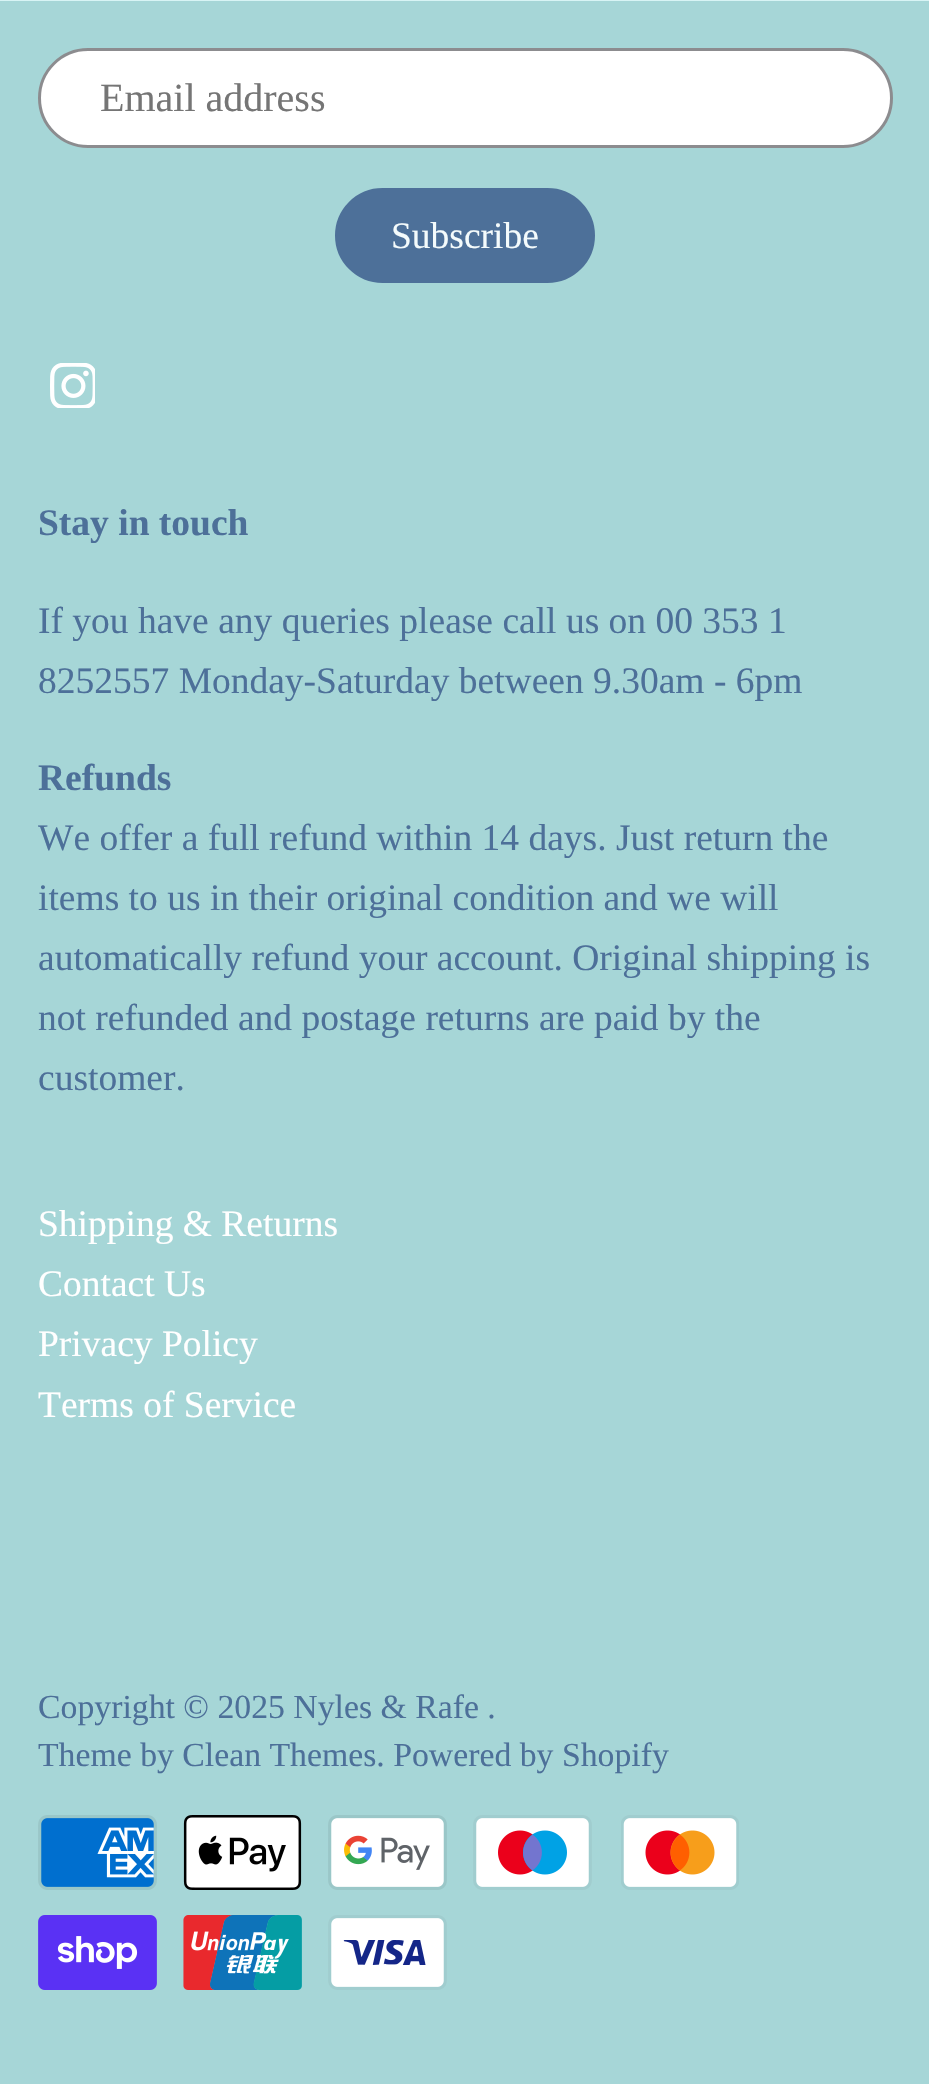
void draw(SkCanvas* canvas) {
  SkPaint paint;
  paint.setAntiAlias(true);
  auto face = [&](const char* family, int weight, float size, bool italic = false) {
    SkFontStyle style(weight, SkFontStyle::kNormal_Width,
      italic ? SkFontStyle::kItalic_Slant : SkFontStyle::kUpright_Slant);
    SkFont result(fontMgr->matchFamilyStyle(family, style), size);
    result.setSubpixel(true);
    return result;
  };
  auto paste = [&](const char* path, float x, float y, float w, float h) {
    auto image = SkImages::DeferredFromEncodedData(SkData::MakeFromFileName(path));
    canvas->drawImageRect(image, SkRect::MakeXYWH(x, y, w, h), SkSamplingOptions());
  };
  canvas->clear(0xffa6d6d7);
  paint.setColor(0xffd8f4f5);
  canvas->drawRect(SkRect::MakeXYWH(0, 0, 929, 1), paint);
  paint.setColor(0xffffffff);
  canvas->drawRoundRect(SkRect::MakeXYWH(39.5f, 49.5f, 852, 97), 48.5f, 48.5f, paint);
  paint.setStroke(true);
  paint.setStrokeWidth(3);
  paint.setColor(0xff8c8c8f);
  canvas->drawRoundRect(SkRect::MakeXYWH(39.5f, 49.5f, 852, 97), 48.5f, 48.5f, paint);
  paint.setStroke(false);
  paint.setColor(0xff4d7099);
  canvas->drawRoundRect(SkRect::MakeXYWH(336.5f, 189.5f, 257, 92), 46, 46, paint);
  paint.setStroke(true);
  canvas->drawRoundRect(SkRect::MakeXYWH(336.5f, 189.5f, 257, 92), 46, 46, paint);
  paste("img/1.png", 50, 363, 45, 45);
  paste("img/2.png", 38, 1815, 119, 75);
  paste("img/3.png", 183, 1815, 119, 75);
  paste("img/4.png", 328, 1815, 119, 75);
  paste("img/5.png", 473, 1815, 119, 75);
  paste("img/6.png", 621, 1815, 118, 75);
  paste("img/7.png", 38, 1915, 119, 75);
  paste("img/8.png", 183, 1915, 119, 75);
  paste("img/9.png", 328, 1915, 119, 75);
  auto f0 = face("Liberation Serif", 400, 40);
  paint.setStroke(false);
  paint.setColor(0xff757575);
  canvas->drawString("Email address", 100, 111, f0, paint);
  auto f1 = face("Liberation Serif", 400, 37.5f);
  paint.setColor(0xfff4fbfc);
  canvas->drawString("Subscribe", 391, 248, f1, paint);
  auto f2 = face("Liberation Serif", 700, 37.5f);
  paint.setColor(0xff4d7099);
  canvas->drawString("Stay in touch", 38, 535, f2, paint);
  canvas->drawString("If you have any queries please call us on 00 353 1", 38, 633, f1, paint);
  canvas->drawString("8252557 Monday-Saturday between 9.30am - 6pm", 38, 693, f1, paint);
  canvas->drawString("Refunds", 38, 790, f2, paint);
  {
    const struct { const char* s; float x, y; } items[] = {
      {"We offer a full refund within 14 days. Just return the", 38, 850},
      {"items to us in their original condition and we will", 38, 910},
      {"automatically refund your account. Original shipping is", 38, 970},
      {"not refunded and postage returns are paid by the", 38, 1030},
      {"customer.", 38, 1090},
    };
    for (auto [s, x, y] : items) {
      canvas->drawString(s, x, y, f1, paint);
    }
  }
  paint.setColor(0xffffffff);
  {
    const struct { const char* s; float x, y; } items[] = {
      {"Shipping & Returns", 38, 1236},
      {"Contact Us", 38, 1296},
      {"Privacy Policy", 38, 1356},
      {"Terms of Service", 38, 1417},
    };
    for (auto [s, x, y] : items) {
      canvas->drawString(s, x, y, f1, paint);
    }
  }
  auto f3 = face("Liberation Serif", 400, 33.75f);
  paint.setColor(0xff4d7099);
  canvas->drawString("Copyright © 2025 Nyles & Rafe .", 38, 1718, f3, paint);
  canvas->drawString("Theme by Clean Themes. Powered by Shopify", 38, 1766, f3, paint);
}
